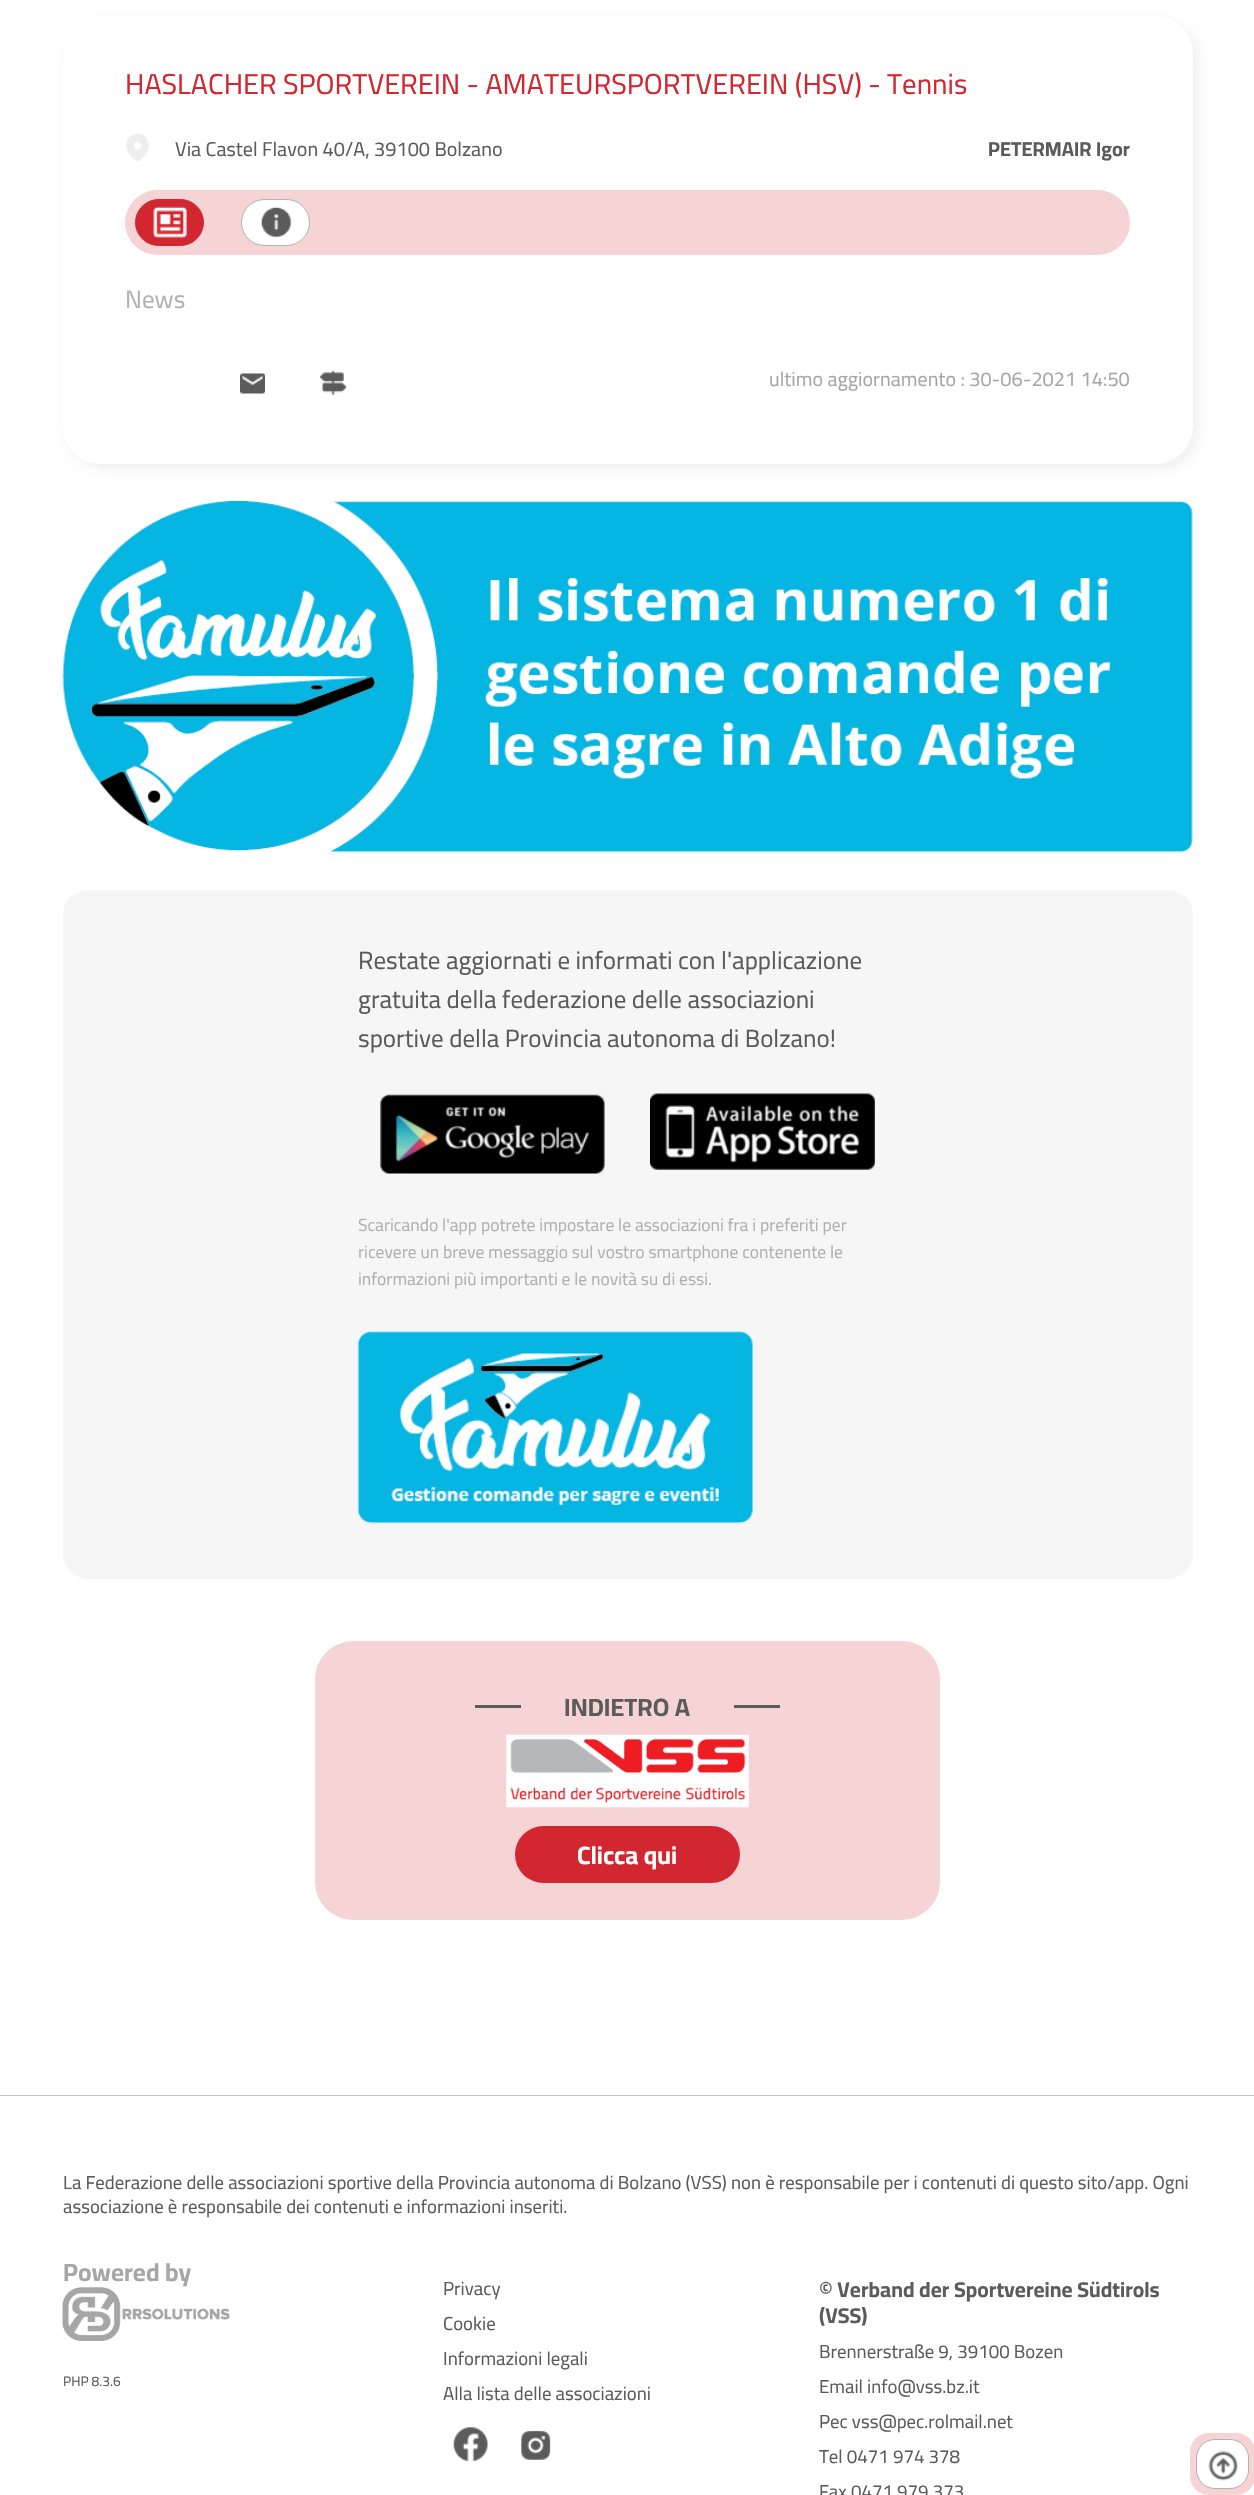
void draw(SkCanvas* canvas) {
  SkPaint paint;
  paint.setAntiAlias(true);
  auto face = [&](const char* family, int weight, float size, bool italic = false) {
    SkFontStyle style(weight, SkFontStyle::kNormal_Width,
      italic ? SkFontStyle::kItalic_Slant : SkFontStyle::kUpright_Slant);
    SkFont result(fontMgr->matchFamilyStyle(family, style), size);
    result.setSubpixel(true);
    return result;
  };
  auto paste = [&](const char* path, float x, float y, float w, float h) {
    auto image = SkImages::DeferredFromEncodedData(SkData::MakeFromFileName(path));
    canvas->drawImageRect(image, SkRect::MakeXYWH(x, y, w, h), SkSamplingOptions());
  };
  auto shape = [&](const char* data, bool evenOdd = false) {
    SkPath result = *SkParsePath::FromSVGString(data);
    if (evenOdd) result.setFillType(SkPathFillType::kEvenOdd);
    return result;
  };
  canvas->clear(0xffffffff);
  canvas->save();
  canvas->clipPath(shape("M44 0H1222V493H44ZM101 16H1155C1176 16 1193 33 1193 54V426C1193 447 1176 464 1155 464H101C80 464 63 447 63 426V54C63 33 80 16 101 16Z", true), true);
  paint.setColor(0x80dddddd);
  paint.setMaskFilter(SkMaskFilter::MakeBlur(kNormal_SkBlurStyle, 7.5f));
  canvas->drawRoundRect(SkRect::MakeXYWH(68, 21, 1130, 448), 38, 38, paint);
  paint.setMaskFilter(nullptr);
  canvas->restore();
  paste("img/1.png", 126, 133, 23, 29);
  paint.setColor(0xfff6d4d6);
  canvas->drawRoundRect(SkRect::MakeXYWH(125, 190, 1005, 65), 32.5f, 32.5f, paint);
  paint.setColor(0xffd22730);
  canvas->drawRoundRect(SkRect::MakeXYWH(135.5f, 199.5f, 68, 46), 23, 23, paint);
  paint.setStroke(true);
  paint.setStrokeWidth(1);
  canvas->drawRoundRect(SkRect::MakeXYWH(135.5f, 199.5f, 68, 46), 23, 23, paint);
  paste("img/2.png", 153, 206, 34, 32);
  paint.setStroke(false);
  paint.setColor(0xffffffff);
  canvas->drawRoundRect(SkRect::MakeXYWH(241.5f, 199.5f, 68, 46), 23, 23, paint);
  paint.setStroke(true);
  paint.setColor(0xffb1b3b3);
  canvas->drawRoundRect(SkRect::MakeXYWH(241.5f, 199.5f, 68, 46), 23, 23, paint);
  paste("img/3.png", 260, 206, 32, 32);
  paste("img/4.png", 240, 373, 25, 21);
  paste("img/5.png", 320, 371, 27, 24);
  paste("img/6.png", 62, 501, 1131, 352);
  paint.setStroke(false);
  paint.setColor(0xfff6f6f6);
  canvas->drawRoundRect(SkRect::MakeXYWH(63, 890, 1130, 689), 25, 25, paint);
  paste("img/7.png", 380, 1094, 225, 80);
  paste("img/8.png", 650, 1093, 225, 77);
  paste("img/9.png", 357, 1331, 396, 193);
  paint.setColor(0xfff6d4d6);
  canvas->drawRoundRect(SkRect::MakeXYWH(315, 1641, 625, 279), 38, 38, paint);
  paint.setColor(0xff5b5b5b);
  canvas->drawRect(SkRect::MakeXYWH(475, 1705, 46, 3), paint);
  canvas->drawRect(SkRect::MakeXYWH(734, 1705, 46, 3), paint);
  paste("img/10.png", 506, 1734, 243, 74);
  paint.setColor(0xffd22730);
  canvas->drawRoundRect(SkRect::MakeXYWH(515, 1826, 225, 57), 28.5f, 28.5f, paint);
  paint.setColor(0xffc6c6c6);
  canvas->drawRect(SkRect::MakeXYWH(0, 2095, 1254, 1), paint);
  paste("img/11.png", 62, 2287, 168, 54);
  paste("img/12.png", 453, 2427, 35, 34);
  paste("img/13.png", 521, 2430, 30, 30);
  paint.setColor(0xfff6d4d6);
  canvas->drawRoundRect(SkRect::MakeXYWH(1190, 2433, 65, 62), 19, 19, paint);
  paint.setColor(0xffffffff);
  canvas->drawRoundRect(SkRect::MakeXYWH(1196.5f, 2439.5f, 52, 49), 18.5f, 18.5f, paint);
  paint.setStroke(true);
  paint.setColor(0xffb1b3b3);
  canvas->drawRoundRect(SkRect::MakeXYWH(1196.5f, 2439.5f, 52, 49), 18.5f, 18.5f, paint);
  paste("img/14.png", 1208, 2450, 30, 31);
  auto f0 = face("Cairo", 400, 28.75f);
  paint.setStroke(false);
  paint.setColor(0xffd22730);
  canvas->drawString("HASLACHER SPORTVEREIN - AMATEURSPORTVEREIN (HSV) - Tennis", 125, 94, f0, paint);
  auto f1 = face("Cairo", 400, 20);
  paint.setColor(0xff5b5b5b);
  canvas->drawString("Via Castel Flavon 40/A, 39100 Bolzano", 175, 156, f1, paint);
  auto f2 = face("Cairo", 700, 20);
  canvas->drawString("PETERMAIR Igor", 988, 156, f2, paint);
  auto f3 = face("Cairo", 400, 25);
  paint.setColor(0xffb2b1b2);
  canvas->drawString("News", 125, 308, f3, paint);
  paint.setColor(0xffa6a6a6);
  canvas->drawString("ultimo aggiornamento : 30-06-2021 14:50", 769, 386, f1, paint);
  paint.setColor(0xff5b5b5b);
  {
    const struct { const char* s; float x, y; } items[] = {
      {"Restate aggiornati e informati con l'applicazione", 358, 969},
      {"gratuita della federazione delle associazioni", 358, 1008},
      {"sportive della Provincia autonoma di Bolzano!", 358, 1047},
    };
    for (auto [s, x, y] : items) {
      canvas->drawString(s, x, y, f3, paint);
    }
  }
  auto f4 = face("Cairo", 400, 17.5f);
  paint.setColor(0xffb2b1b2);
  {
    const struct { const char* s; float x, y; } items[] = {
      {"Scaricando l'app potrete impostare le associazioni fra i preferiti per", 358, 1231},
      {"ricevere un breve messaggio sul vostro smartphone contenente le", 358, 1258},
      {"informazioni più importanti e le novità su di essi.", 358, 1285},
    };
    for (auto [s, x, y] : items) {
      canvas->drawString(s, x, y, f4, paint);
    }
  }
  auto f5 = face("Cairo", 700, 25);
  paint.setColor(0xff5b5b5b);
  canvas->drawString("INDIETRO A", 564, 1716, f5, paint);
  paint.setColor(0xffffffff);
  canvas->drawString("Clicca qui", 577, 1864, f5, paint);
  auto f6 = face("Cairo", 400, 18.75f);
  paint.setColor(0xff5b5b5b);
  canvas->drawString("La Federazione delle associazioni sportive della Provincia autonoma di Bolzano (VSS) non è responsabile per i contenuti di questo sito/app. Ogni", 63, 2189, f6, paint);
  canvas->drawString("associazione è responsabile dei contenuti e informazioni inseriti.", 63, 2213, f6, paint);
  paint.setColor(0xffa6a6a6);
  canvas->drawString("Powered by", 63, 2281, f5, paint);
  auto f7 = face("Cairo", 400, 13.75f);
  paint.setColor(0xff5b5b5b);
  canvas->drawString("PHP 8.3.6", 63, 2386, f7, paint);
  {
    const struct { const char* s; float x, y; } items[] = {
      {"Privacy", 443, 2295},
      {"Cookie", 443, 2330},
      {"Informazioni legali", 443, 2365},
      {"Alla lista delle associazioni", 443, 2400},
    };
    for (auto [s, x, y] : items) {
      canvas->drawString(s, x, y, f6, paint);
    }
  }
  auto f8 = face("Cairo", 700, 21.25f);
  canvas->drawString("© Verband der Sportvereine Südtirols", 819, 2297, f8, paint);
  canvas->drawString("(VSS)", 819, 2323, f8, paint);
  {
    const struct { const char* s; float x, y; } items[] = {
      {"Brennerstraße 9, 39100 Bozen", 819, 2358},
      {"Email info@vss.bz.it", 819, 2393},
      {"Pec vss@pec.rolmail.net", 819, 2428},
      {"Tel 0471 974 378", 819, 2463},
      {"Fax 0471 979 373", 819, 2498},
    };
    for (auto [s, x, y] : items) {
      canvas->drawString(s, x, y, f6, paint);
    }
  }
}
